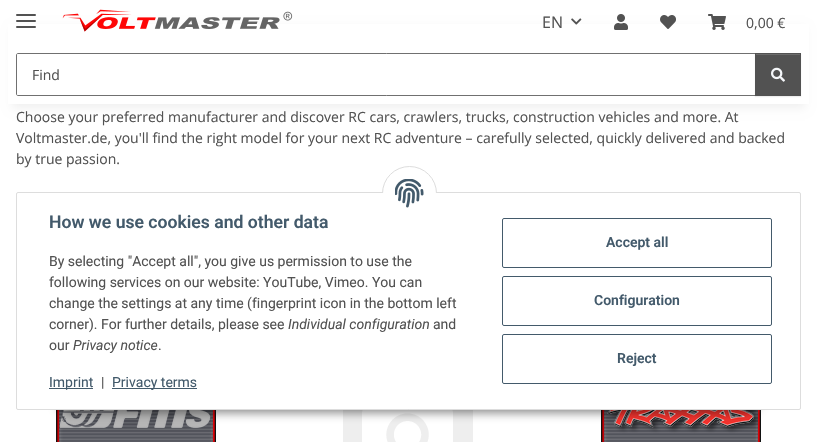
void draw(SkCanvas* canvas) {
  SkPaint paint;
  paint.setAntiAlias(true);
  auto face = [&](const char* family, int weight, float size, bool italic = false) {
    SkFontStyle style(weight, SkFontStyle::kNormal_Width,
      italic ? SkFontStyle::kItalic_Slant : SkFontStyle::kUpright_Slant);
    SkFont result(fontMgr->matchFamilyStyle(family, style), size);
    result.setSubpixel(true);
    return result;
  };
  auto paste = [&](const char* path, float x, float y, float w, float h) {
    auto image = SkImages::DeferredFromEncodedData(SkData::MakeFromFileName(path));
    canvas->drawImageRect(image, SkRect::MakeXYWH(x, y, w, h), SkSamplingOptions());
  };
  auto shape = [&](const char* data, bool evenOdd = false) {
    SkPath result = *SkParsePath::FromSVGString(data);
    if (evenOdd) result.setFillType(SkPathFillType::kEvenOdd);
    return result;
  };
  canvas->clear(0xffffffff);
  paint.setColor(0x0f000000);
  paint.setMaskFilter(SkMaskFilter::MakeBlur(kNormal_SkBlurStyle, 4.5f));
  canvas->drawRect(SkRect::MakeXYWH(12, 28, 793, 80), paint);
  paint.setMaskFilter(nullptr);
  paint.setColor(0xffffffff);
  canvas->drawRect(SkRect::MakeXYWH(8, 24, 801, 80), paint);
  paint.setColor(0xff525252);
  canvas->drawRoundRect(SkRect::MakeXYWH(16, 20, 20, 2), 1, 1, paint);
  canvas->drawRoundRect(SkRect::MakeXYWH(16, 14, 20, 2), 1, 1, paint);
  canvas->drawRoundRect(SkRect::MakeXYWH(16, 26, 20, 2), 1, 1, paint);
  paste("img/1.png", 62, 9, 231, 23);
  paste("img/2.png", 571, 18, 11, 7);
  paste("img/3.png", 614, 14, 14, 16);
  paste("img/4.png", 660, 15, 16, 14);
  paste("img/5.png", 708, 14, 18, 16);
  paint.setStroke(true);
  paint.setStrokeWidth(1);
  paint.setColor(0xff707070);
  canvas->drawPath(shape("M18 53.5H755.5V95.5H18C17 95.5 16.5 95 16.5 94V55C16.5 54 17 53.5 18 53.5Z"), paint);
  paint.setStroke(false);
  paint.setColor(0x12000000);
  paint.setMaskFilter(SkMaskFilter::MakeBlur(kNormal_SkBlurStyle, 0.5f));
  canvas->drawRect(SkRect::MakeXYWH(755, 54, 46, 43), paint);
  paint.setMaskFilter(nullptr);
  paint.setColor(0xff525252);
  canvas->drawRect(SkRect::MakeXYWH(755, 53, 46, 43), paint);
  paint.setColor(0xff6c6c6c);
  canvas->drawRect(SkRect::MakeXYWH(756, 54, 44, 1), paint);
  paste("img/6.png", 771, 67, 14, 15);
  paste("img/7.png", 56, 410, 160, 32);
  paste("img/8.png", 343, 410, 130, 32);
  paste("img/9.png", 601, 410, 160, 32);
  paint.setColor(0x73000000);
  paint.setMaskFilter(SkMaskFilter::MakeBlur(kNormal_SkBlurStyle, 5));
  canvas->drawRoundRect(SkRect::MakeXYWH(56, 381, 705, 32), 16, 16, paint);
  paint.setMaskFilter(nullptr);
  paint.setColor(0xffffffff);
  canvas->drawRoundRect(SkRect::MakeXYWH(16.5f, 192.5f, 784, 217), 1.5f, 1.5f, paint);
  paint.setStroke(true);
  paint.setColor(0xffdddddd);
  canvas->drawRoundRect(SkRect::MakeXYWH(16.5f, 192.5f, 784, 217), 1.5f, 1.5f, paint);
  paint.setStroke(false);
  paint.setColor(0xffffffff);
  canvas->drawCircle(409.5f, 193.5f, 27, paint);
  paint.setStroke(true);
  paint.setColor(0xffdddddd);
  canvas->drawCircle(409.5f, 193.5f, 27, paint);
  paint.setStroke(false);
  paint.setColor(0xffffffff);
  canvas->drawRect(SkRect::MakeXYWH(382, 193, 55, 28), paint);
  paste("img/10.png", 395, 179, 29, 29);
  paint.setColor(0xff435a6b);
  canvas->drawRect(SkRect::MakeXYWH(49, 388, 44, 1), paint);
  canvas->drawRect(SkRect::MakeXYWH(112, 388, 85, 1), paint);
  paint.setStroke(true);
  canvas->drawRoundRect(SkRect::MakeXYWH(502.5f, 218.5f, 269, 49), 1.5f, 1.5f, paint);
  canvas->drawRoundRect(SkRect::MakeXYWH(502.5f, 276.5f, 269, 49), 1.5f, 1.5f, paint);
  canvas->drawRoundRect(SkRect::MakeXYWH(502.5f, 334.5f, 269, 49), 1.5f, 1.5f, paint);
  auto f0 = face("Open Sans", 400, 16);
  paint.setStroke(false);
  paint.setColor(0xff525252);
  canvas->drawString("EN", 542, 28, f0, paint);
  auto f1 = face("Open Sans", 400, 14);
  {
    const struct { const char* s; float x, y; } items[] = {
      {"0,00 €", 746, 28},
      {"Find", 32, 80},
      {"Choose your preferred manufacturer and discover RC cars, crawlers, trucks, construction vehicles and more. At", 16, 122},
      {"Voltmaster.de, you'll find the right model for your next RC adventure – carefully selected, quickly delivered and backed", 16, 143},
      {"by true passion.", 16, 164},
    };
    for (auto [s, x, y] : items) {
      canvas->drawString(s, x, y, f1, paint);
    }
  }
  auto f2 = face("Roboto", 600, 17.6f);
  paint.setColor(0xff435a6b);
  canvas->drawString("How we use cookies and other data", 49, 228, f2, paint);
  auto f3 = face("Roboto", 400, 14);
  paint.setColor(0xff525252);
  {
    const struct { const char* s; float x, y; } items[] = {
      {"By selecting \"Accept all\", you give us permission to use the", 49, 266},
      {"following services on our website: YouTube, Vimeo. You can", 49, 287},
      {"change the settings at any time (fingerprint icon in the bottom left", 49, 308},
      {"corner). For further details, please see", 49, 329},
    };
    for (auto [s, x, y] : items) {
      canvas->drawString(s, x, y, f3, paint);
    }
  }
  auto f4 = face("Roboto", 400, 14, true);
  canvas->drawString("Individual configuration", 288, 329, f4, paint);
  canvas->drawString("and", 433, 329, f3, paint);
  canvas->drawString("our", 49, 350, f3, paint);
  canvas->drawString("Privacy notice", 73, 350, f4, paint);
  canvas->drawString(".", 158, 350, f3, paint);
  paint.setColor(0xff435a6b);
  canvas->drawString("Imprint", 49, 387, f3, paint);
  paint.setColor(0xff525252);
  canvas->drawString("|", 101, 387, f3, paint);
  paint.setColor(0xff435a6b);
  canvas->drawString("Privacy terms", 112, 387, f3, paint);
  auto f5 = face("Roboto", 600, 14);
  {
    const struct { const char* s; float x, y; } items[] = {
      {"Accept all", 606, 247},
      {"Configuration", 594, 305},
      {"Reject", 617, 363},
    };
    for (auto [s, x, y] : items) {
      canvas->drawString(s, x, y, f5, paint);
    }
  }
}
